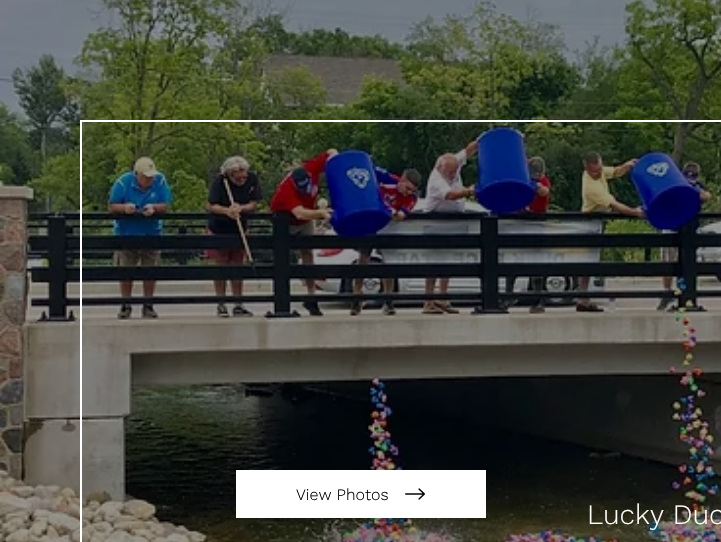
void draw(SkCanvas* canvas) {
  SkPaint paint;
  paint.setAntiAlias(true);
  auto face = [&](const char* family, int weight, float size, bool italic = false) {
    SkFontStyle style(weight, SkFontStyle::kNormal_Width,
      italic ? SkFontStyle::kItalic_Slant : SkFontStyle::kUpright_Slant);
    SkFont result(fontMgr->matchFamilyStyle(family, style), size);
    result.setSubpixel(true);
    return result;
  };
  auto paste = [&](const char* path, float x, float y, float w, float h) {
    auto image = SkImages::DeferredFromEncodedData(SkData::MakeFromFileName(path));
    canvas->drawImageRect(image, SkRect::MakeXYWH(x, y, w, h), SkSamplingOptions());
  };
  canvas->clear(0xff000000);
  paste("img/1.png", 0, 0, 721, 542);
  paint.setStroke(true);
  paint.setStrokeWidth(2);
  paint.setColor(0xffffffff);
  canvas->drawRect(SkRect::MakeXYWH(81, 121, 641, 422), paint);
  paint.setStroke(false);
  canvas->drawRect(SkRect::MakeXYWH(236, 470, 250, 48), paint);
  paste("img/2.png", 405, 488, 20, 12);
  auto f0 = face("Work Sans", 300, 16);
  paint.setColor(0xff000000);
  canvas->drawString("View Photos", 296, 500, f0, paint);
  auto f1 = face("Work Sans", 300, 28);
  paint.setColor(0xffffffff);
  canvas->drawString("Lucky Duc", 587, 524, f1, paint);
}
